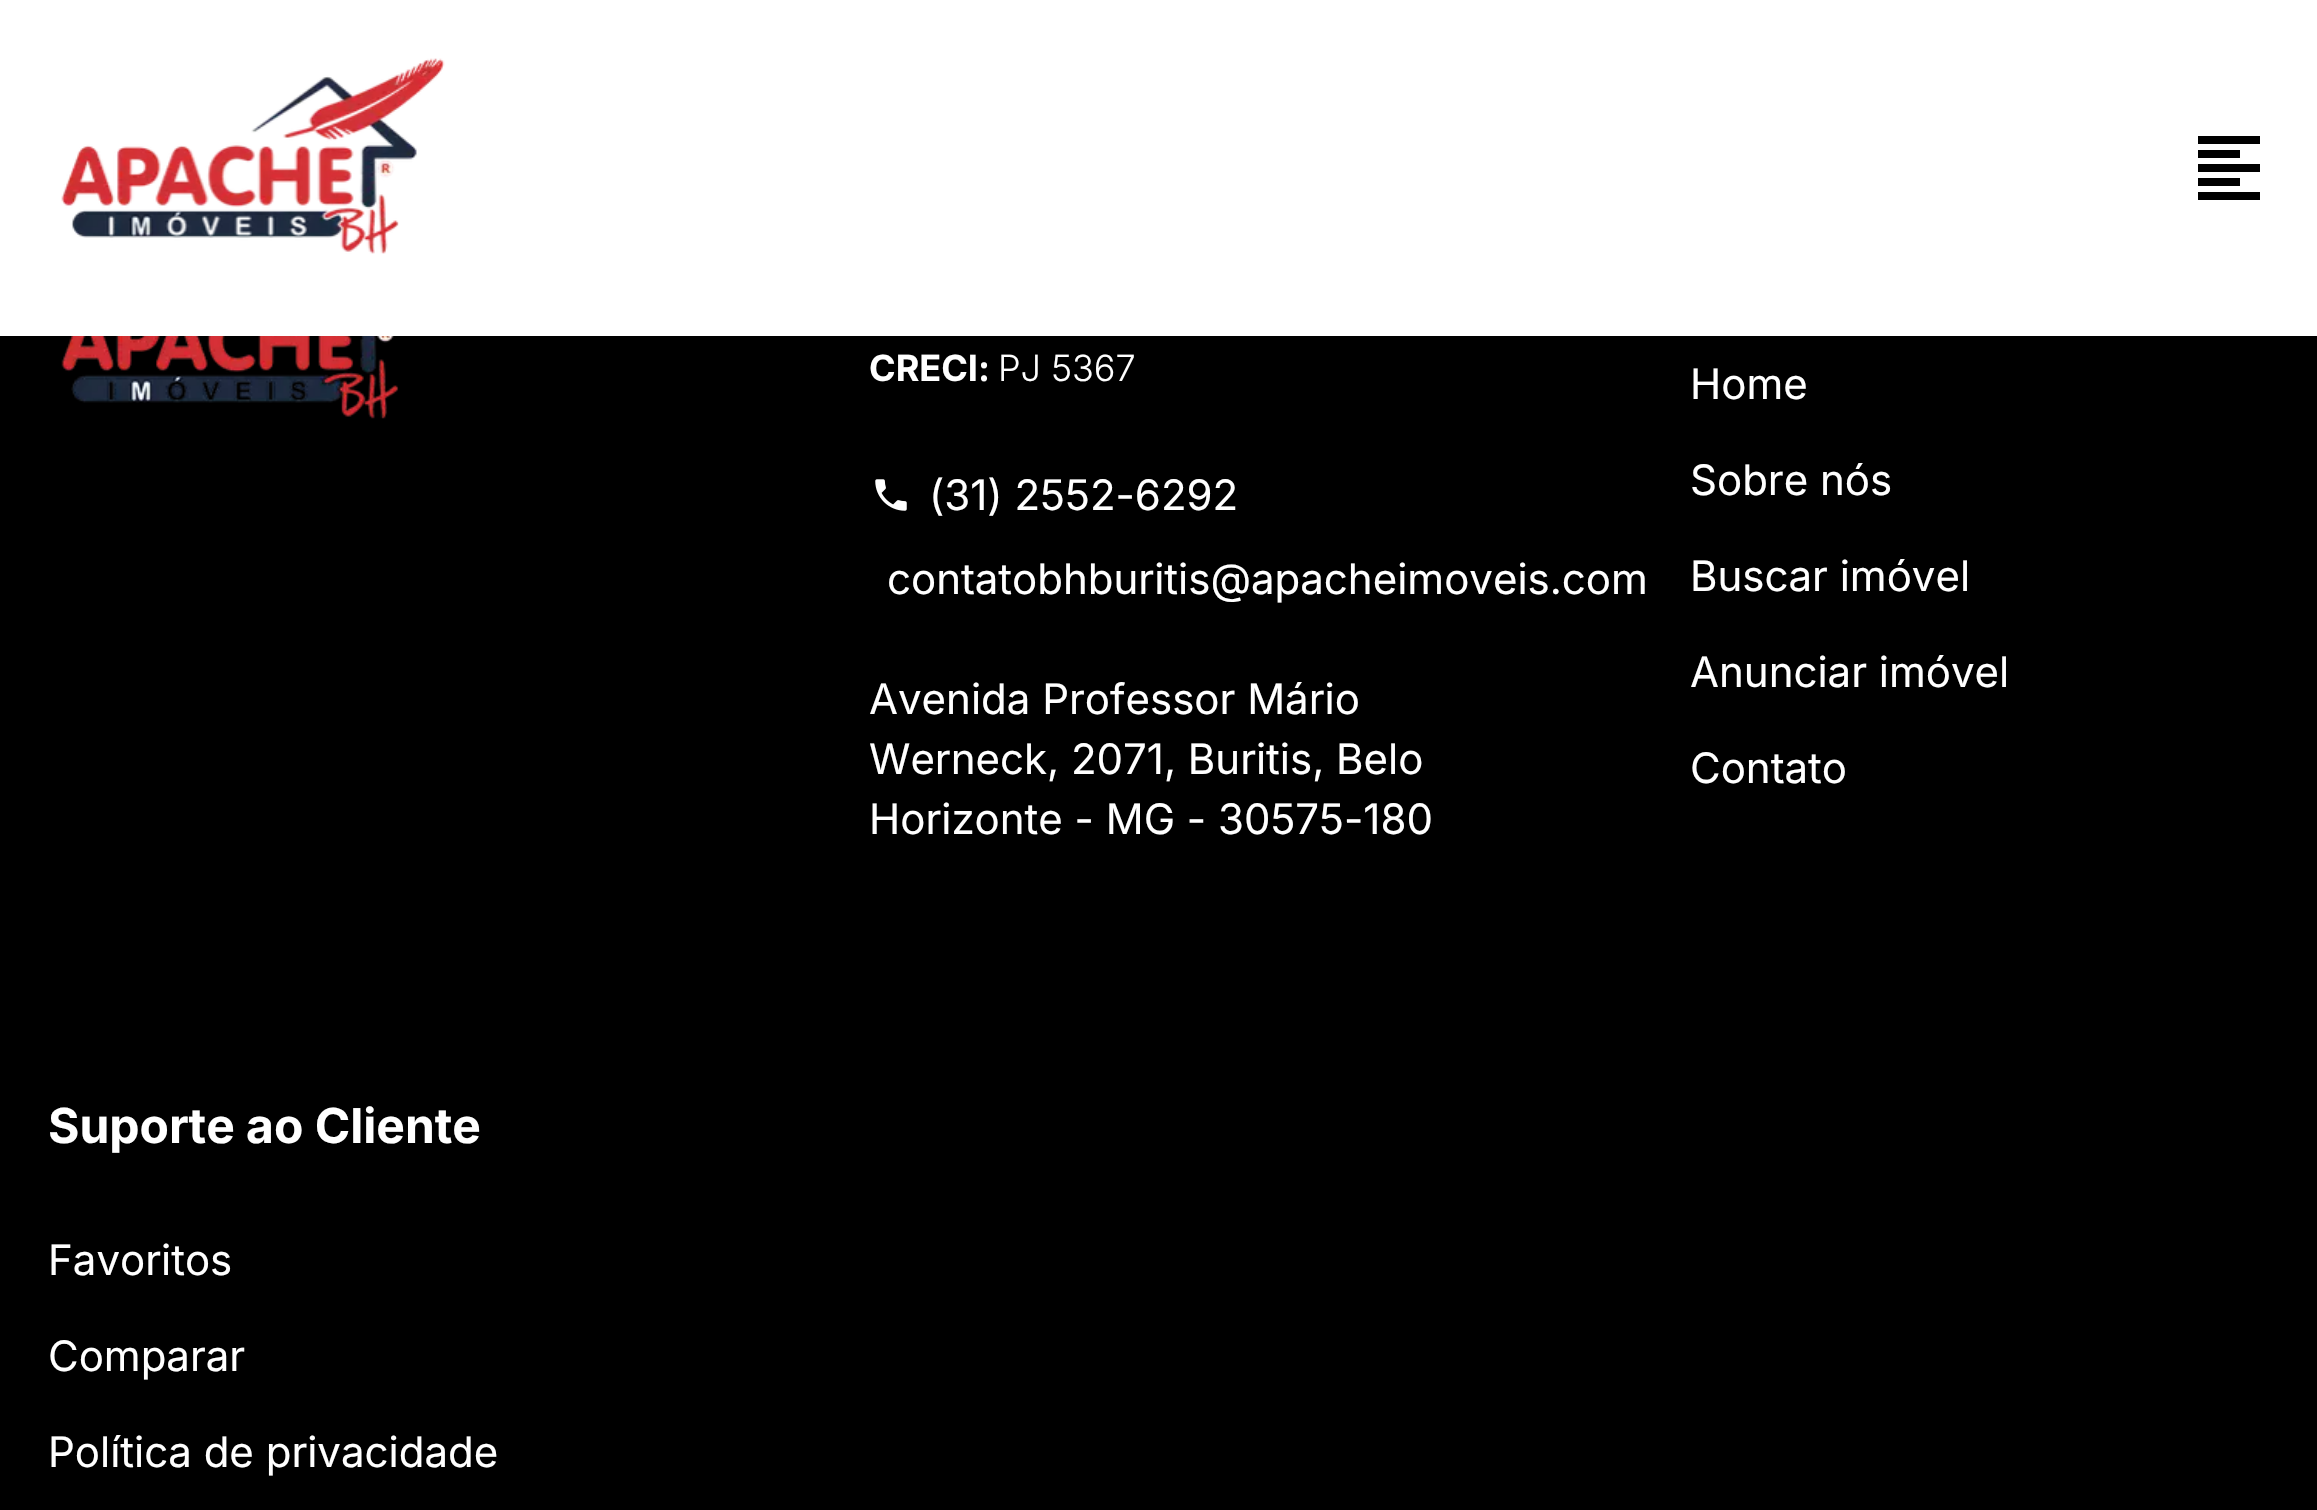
void draw(SkCanvas* canvas) {
  SkPaint paint;
  paint.setAntiAlias(true);
  auto face = [&](const char* family, int weight, float size, bool italic = false) {
    SkFontStyle style(weight, SkFontStyle::kNormal_Width,
      italic ? SkFontStyle::kItalic_Slant : SkFontStyle::kUpright_Slant);
    SkFont result(fontMgr->matchFamilyStyle(family, style), size);
    result.setSubpixel(true);
    return result;
  };
  auto paste = [&](const char* path, float x, float y, float w, float h) {
    auto image = SkImages::DeferredFromEncodedData(SkData::MakeFromFileName(path));
    canvas->drawImageRect(image, SkRect::MakeXYWH(x, y, w, h), SkSamplingOptions());
  };
  auto shape = [&](const char* data, bool evenOdd = false) {
    SkPath result = *SkParsePath::FromSVGString(data);
    if (evenOdd) result.setFillType(SkPathFillType::kEvenOdd);
    return result;
  };
  canvas->clear(0xff000000);
  paint.setColor(0xffffffff);
  canvas->drawRect(SkRect::MakeXYWH(0, 0, 2317, 336), paint);
  paste("img/1.png", 61, 58, 384, 196);
  paint.setColor(0xff000000);
  canvas->drawPath(shape("M2240 178H2198V186H2240ZM2240 150H2198V158H2240ZM2198 172H2260V164H2198ZM2198 200H2260V192H2198ZM2198 136V144H2260V136Z"), paint);
  paste("img/2.png", 61, 336, 338, 83);
  paste("img/3.png", 875, 479, 32, 32);
  auto f0 = face("Inter", 700, 36);
  paint.setColor(0xffffffff);
  canvas->drawString("CRECI:", 869, 381, f0, paint);
  auto f1 = face("Inter", 300, 36);
  canvas->drawString("PJ 5367", 998, 381, f1, paint);
  auto f2 = face("Inter", 400, 42);
  {
    const struct { const char* s; float x, y; } items[] = {
      {"(31) 2552-6292", 929, 510},
      {"contatobhburitis@apacheimoveis.com", 887, 594},
      {"Avenida Professor Mário", 869, 714},
      {"Werneck, 2071, Buritis, Belo", 869, 774},
      {"Horizonte - MG - 30575-180", 869, 834},
      {"Home", 1690, 399},
      {"Sobre nós", 1690, 495},
      {"Buscar imóvel", 1690, 591},
      {"Anunciar imóvel", 1690, 687},
      {"Contato", 1690, 783},
    };
    for (auto [s, x, y] : items) {
      canvas->drawString(s, x, y, f2, paint);
    }
  }
  auto f3 = face("Inter", 700, 48);
  canvas->drawString("Suporte ao Cliente", 48, 1143, f3, paint);
  {
    const struct { const char* s; float x, y; } items[] = {
      {"Favoritos", 48, 1275},
      {"Comparar", 48, 1371},
      {"Política de privacidade", 48, 1467},
    };
    for (auto [s, x, y] : items) {
      canvas->drawString(s, x, y, f2, paint);
    }
  }
}
